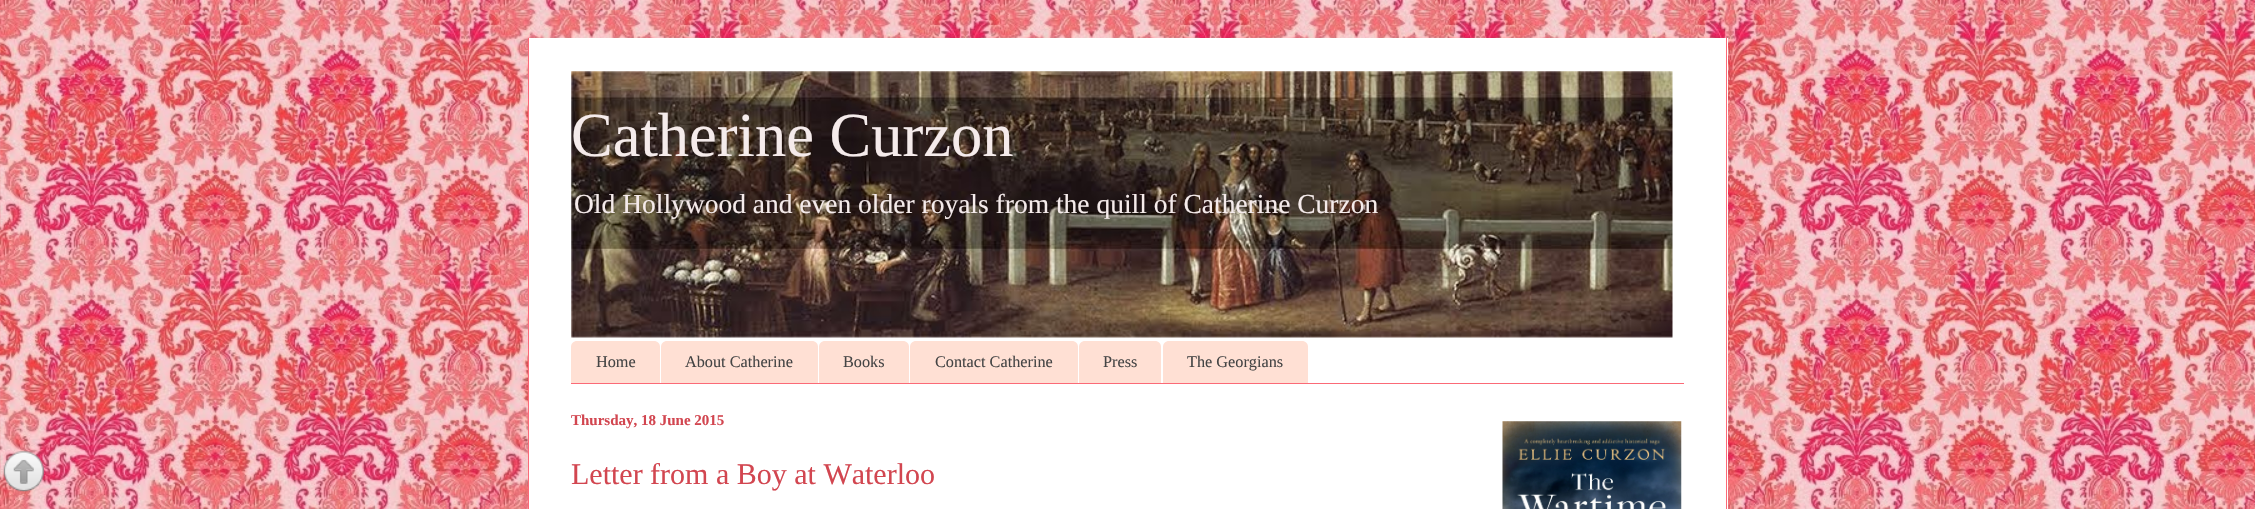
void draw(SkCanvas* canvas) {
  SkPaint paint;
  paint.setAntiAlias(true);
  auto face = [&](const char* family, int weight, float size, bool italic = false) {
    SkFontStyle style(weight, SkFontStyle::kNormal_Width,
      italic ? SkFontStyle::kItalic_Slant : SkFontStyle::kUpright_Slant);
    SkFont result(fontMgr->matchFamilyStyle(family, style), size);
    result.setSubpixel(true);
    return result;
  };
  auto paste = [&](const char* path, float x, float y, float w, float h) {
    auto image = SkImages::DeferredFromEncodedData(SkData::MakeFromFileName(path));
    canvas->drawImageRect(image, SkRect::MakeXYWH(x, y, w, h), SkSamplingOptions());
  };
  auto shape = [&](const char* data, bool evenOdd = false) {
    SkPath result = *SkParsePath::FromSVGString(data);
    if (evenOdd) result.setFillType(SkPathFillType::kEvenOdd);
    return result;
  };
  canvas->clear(0xffffffff);
  paste("img/1.png", 0, 0, 2255, 509);
  {
    const struct { float x, y, w, h; SkColor color; } items[] = {
      {529, 38, 1199, 471, 0xffffffff},
      {1726, 38, 1, 471, 0xfffb6a77},
      {528, 38, 1, 471, 0xfffb6a77},
    };
    for (auto [x, y, w, h, color] : items) {
      paint.setColor(color);
      canvas->drawRect(SkRect::MakeXYWH(x, y, w, h), paint);
    }
  }
  paste("img/2.png", 571, 71, 1102, 267);
  canvas->drawRect(SkRect::MakeXYWH(571, 383, 1113, 1), paint);
  paint.setColor(0xffffe0d4);
  canvas->drawPath(shape("M577 341H654C657.5 341 660 343.5 660 347V383H571V347C571 343.5 573.5 341 577 341Z"), paint);
  canvas->drawPath(shape("M667 341H812C815.5 341 818 343.5 818 347V383H661V347C661 343.5 663.5 341 667 341Z"), paint);
  canvas->drawPath(shape("M825 341H903C906.5 341 909 343.5 909 347V383H819V347C819 343.5 821.5 341 825 341Z"), paint);
  canvas->drawPath(shape("M916 341H1072C1075.5 341 1078 343.5 1078 347V383H910V347C910 343.5 912.5 341 916 341Z"), paint);
  canvas->drawPath(shape("M1085 341H1155C1158.5 341 1161 343.5 1161 347V383H1079V347C1079 343.5 1081.5 341 1085 341Z"), paint);
  canvas->drawPath(shape("M1169 341H1302C1305.5 341 1308 343.5 1308 347V383H1163V347C1163 343.5 1165.5 341 1169 341Z"), paint);
  paste("img/3.png", 3, 451, 41, 41);
  paste("img/4.png", 1502, 421, 180, 88);
  auto f0 = face("Liberation Serif", 400, 62.5f);
  paint.setColor(0xfff5ebeb);
  canvas->drawString("Catherine Curzon", 571, 156, f0, paint);
  auto f1 = face("Liberation Serif", 400, 27.5f);
  canvas->drawString("Old Hollywood and even older royals from the quill of Catherine Curzon", 574, 213, f1, paint);
  auto f2 = face("Liberation Serif", 400, 16.25f);
  paint.setColor(0xff454545);
  {
    const struct { const char* s; float x, y; } items[] = {
      {"Home", 596, 367},
      {"About Catherine", 685, 367},
      {"Books", 843, 367},
      {"Contact Catherine", 935, 367},
      {"Press", 1103, 367},
      {"The Georgians", 1187, 367},
    };
    for (auto [s, x, y] : items) {
      canvas->drawString(s, x, y, f2, paint);
    }
  }
  auto f3 = face("Liberation Serif", 700, 15);
  paint.setColor(0xffd24650);
  canvas->drawString("Thursday, 18 June 2015", 571, 425, f3, paint);
  auto f4 = face("Liberation Serif", 400, 30);
  canvas->drawString("Letter from a Boy at Waterloo", 571, 484, f4, paint);
}
